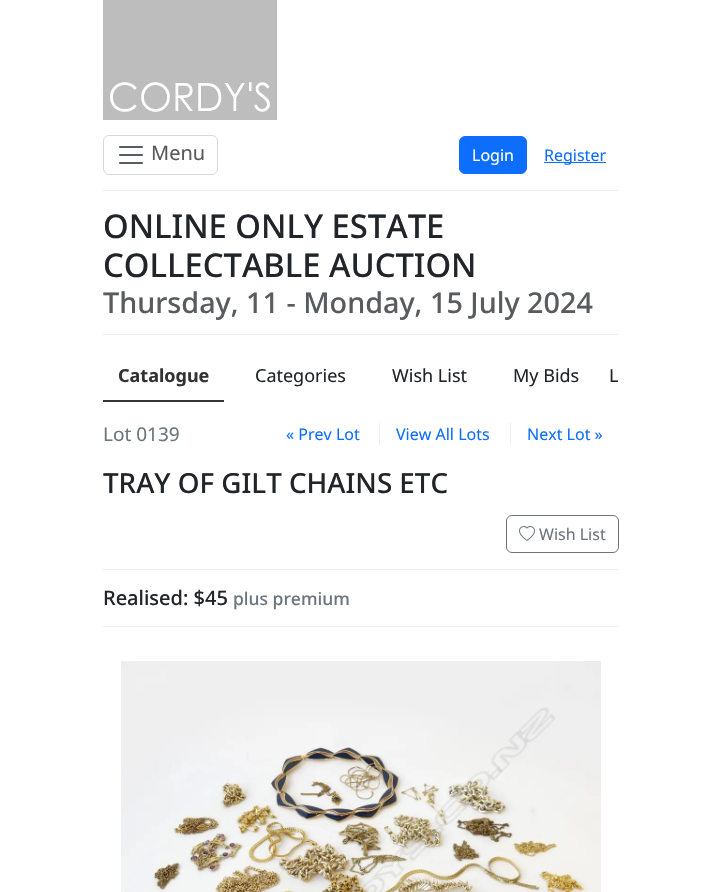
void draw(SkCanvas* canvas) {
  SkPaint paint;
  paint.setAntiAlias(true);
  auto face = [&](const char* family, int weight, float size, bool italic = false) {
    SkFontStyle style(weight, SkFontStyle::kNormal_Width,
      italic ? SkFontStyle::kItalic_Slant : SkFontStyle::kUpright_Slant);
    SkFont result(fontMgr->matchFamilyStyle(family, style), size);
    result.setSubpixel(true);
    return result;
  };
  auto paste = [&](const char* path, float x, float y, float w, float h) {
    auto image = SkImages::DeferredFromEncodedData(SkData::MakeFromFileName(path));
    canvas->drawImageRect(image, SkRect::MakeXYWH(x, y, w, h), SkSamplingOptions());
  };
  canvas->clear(0xffffffff);
  paste("img/1.png", 103, 0, 174, 120);
  paint.setStroke(true);
  paint.setStrokeWidth(1);
  paint.setColor(0xffd9d9d9);
  canvas->drawRoundRect(SkRect::MakeXYWH(103.5f, 135.5f, 114, 39), 5.5f, 5.5f, paint);
  paste("img/2.png", 119, 146, 24, 18);
  paint.setStroke(false);
  paint.setColor(0xff0d6efd);
  canvas->drawRoundRect(SkRect::MakeXYWH(459.5f, 136.5f, 67, 37), 5.5f, 5.5f, paint);
  paint.setStroke(true);
  canvas->drawRoundRect(SkRect::MakeXYWH(459.5f, 136.5f, 67, 37), 5.5f, 5.5f, paint);
  paint.setStroke(false);
  {
    const struct { float x, y, w, h; SkColor color; } items[] = {
      {544, 162, 62, 1, 0xff0d6efd},
      {103, 190, 516, 1, 0xffeeeeee},
      {103, 334, 516, 1, 0xffeeeeee},
      {103, 400, 121, 2, 0xff333333},
      {379, 423, 1, 22, 0xffeeeeee},
      {510, 423, 1, 22, 0xffeeeeee},
    };
    for (auto [x, y, w, h, color] : items) {
      paint.setColor(color);
      canvas->drawRect(SkRect::MakeXYWH(x, y, w, h), paint);
    }
  }
  paint.setStroke(true);
  paint.setColor(0xff6c757d);
  canvas->drawRoundRect(SkRect::MakeXYWH(506.5f, 515.5f, 112, 37), 5.5f, 5.5f, paint);
  paste("img/3.png", 519, 526, 16, 15);
  paint.setStroke(false);
  paint.setColor(0xffeeeeee);
  canvas->drawRect(SkRect::MakeXYWH(103, 569, 516, 1), paint);
  canvas->drawRect(SkRect::MakeXYWH(103, 626, 516, 1), paint);
  paste("img/4.png", 121, 661, 480, 231);
  auto f0 = face("Noto Sans", 400, 20);
  paint.setColor(0xff595959);
  canvas->drawString("Menu", 151, 160, f0, paint);
  auto f1 = face("Noto Sans", 400, 16);
  paint.setColor(0xffffffff);
  canvas->drawString("Login", 472, 161, f1, paint);
  paint.setColor(0xff0d6efd);
  canvas->drawString("Register", 544, 161, f1, paint);
  auto f2 = face("Noto Sans", 500, 32.75f);
  paint.setColor(0xff212529);
  canvas->drawString("ONLINE ONLY ESTATE", 103, 238, f2, paint);
  canvas->drawString("COLLECTABLE AUCTION", 103, 277, f2, paint);
  auto f3 = face("Noto Sans", 500, 28.75f);
  paint.setColor(0xff595c5f);
  canvas->drawString("Thursday, 11 - Monday, 15 July 2024", 103, 313, f3, paint);
  auto f4 = face("Noto Sans", 700, 18);
  paint.setColor(0xff333333);
  canvas->drawString("Catalogue", 118, 382, f4, paint);
  auto f5 = face("Noto Sans", 400, 18);
  paint.setColor(0xff212529);
  {
    const struct { const char* s; float x, y; } items[] = {
      {"Categories", 255, 382},
      {"Wish List", 392, 382},
      {"My Bids", 513, 382},
      {"L", 609, 382},
    };
    for (auto [s, x, y] : items) {
      canvas->drawString(s, x, y, f5, paint);
    }
  }
  auto f6 = face("Noto Sans", 400, 19);
  paint.setColor(0xff6c757d);
  canvas->drawString("Lot 0139", 103, 441, f6, paint);
  paint.setColor(0xff0d6efd);
  {
    const struct { const char* s; float x, y; } items[] = {
      {"« Prev Lot", 286, 440},
      {"View All Lots", 396, 440},
      {"Next Lot »", 527, 440},
    };
    for (auto [s, x, y] : items) {
      canvas->drawString(s, x, y, f1, paint);
    }
  }
  auto f7 = face("Noto Sans", 500, 27.75f);
  paint.setColor(0xff212529);
  canvas->drawString("TRAY OF GILT CHAINS ETC", 103, 493, f7, paint);
  paint.setColor(0xff6c757d);
  canvas->drawString("Wish List", 539, 540, f1, paint);
  auto f8 = face("Noto Sans", 500, 20);
  paint.setColor(0xff212529);
  canvas->drawString("Realised: $45", 103, 605, f8, paint);
  auto f9 = face("Noto Sans", 500, 17.5f);
  paint.setColor(0xff6c757d);
  canvas->drawString("plus premium", 233, 605, f9, paint);
}
